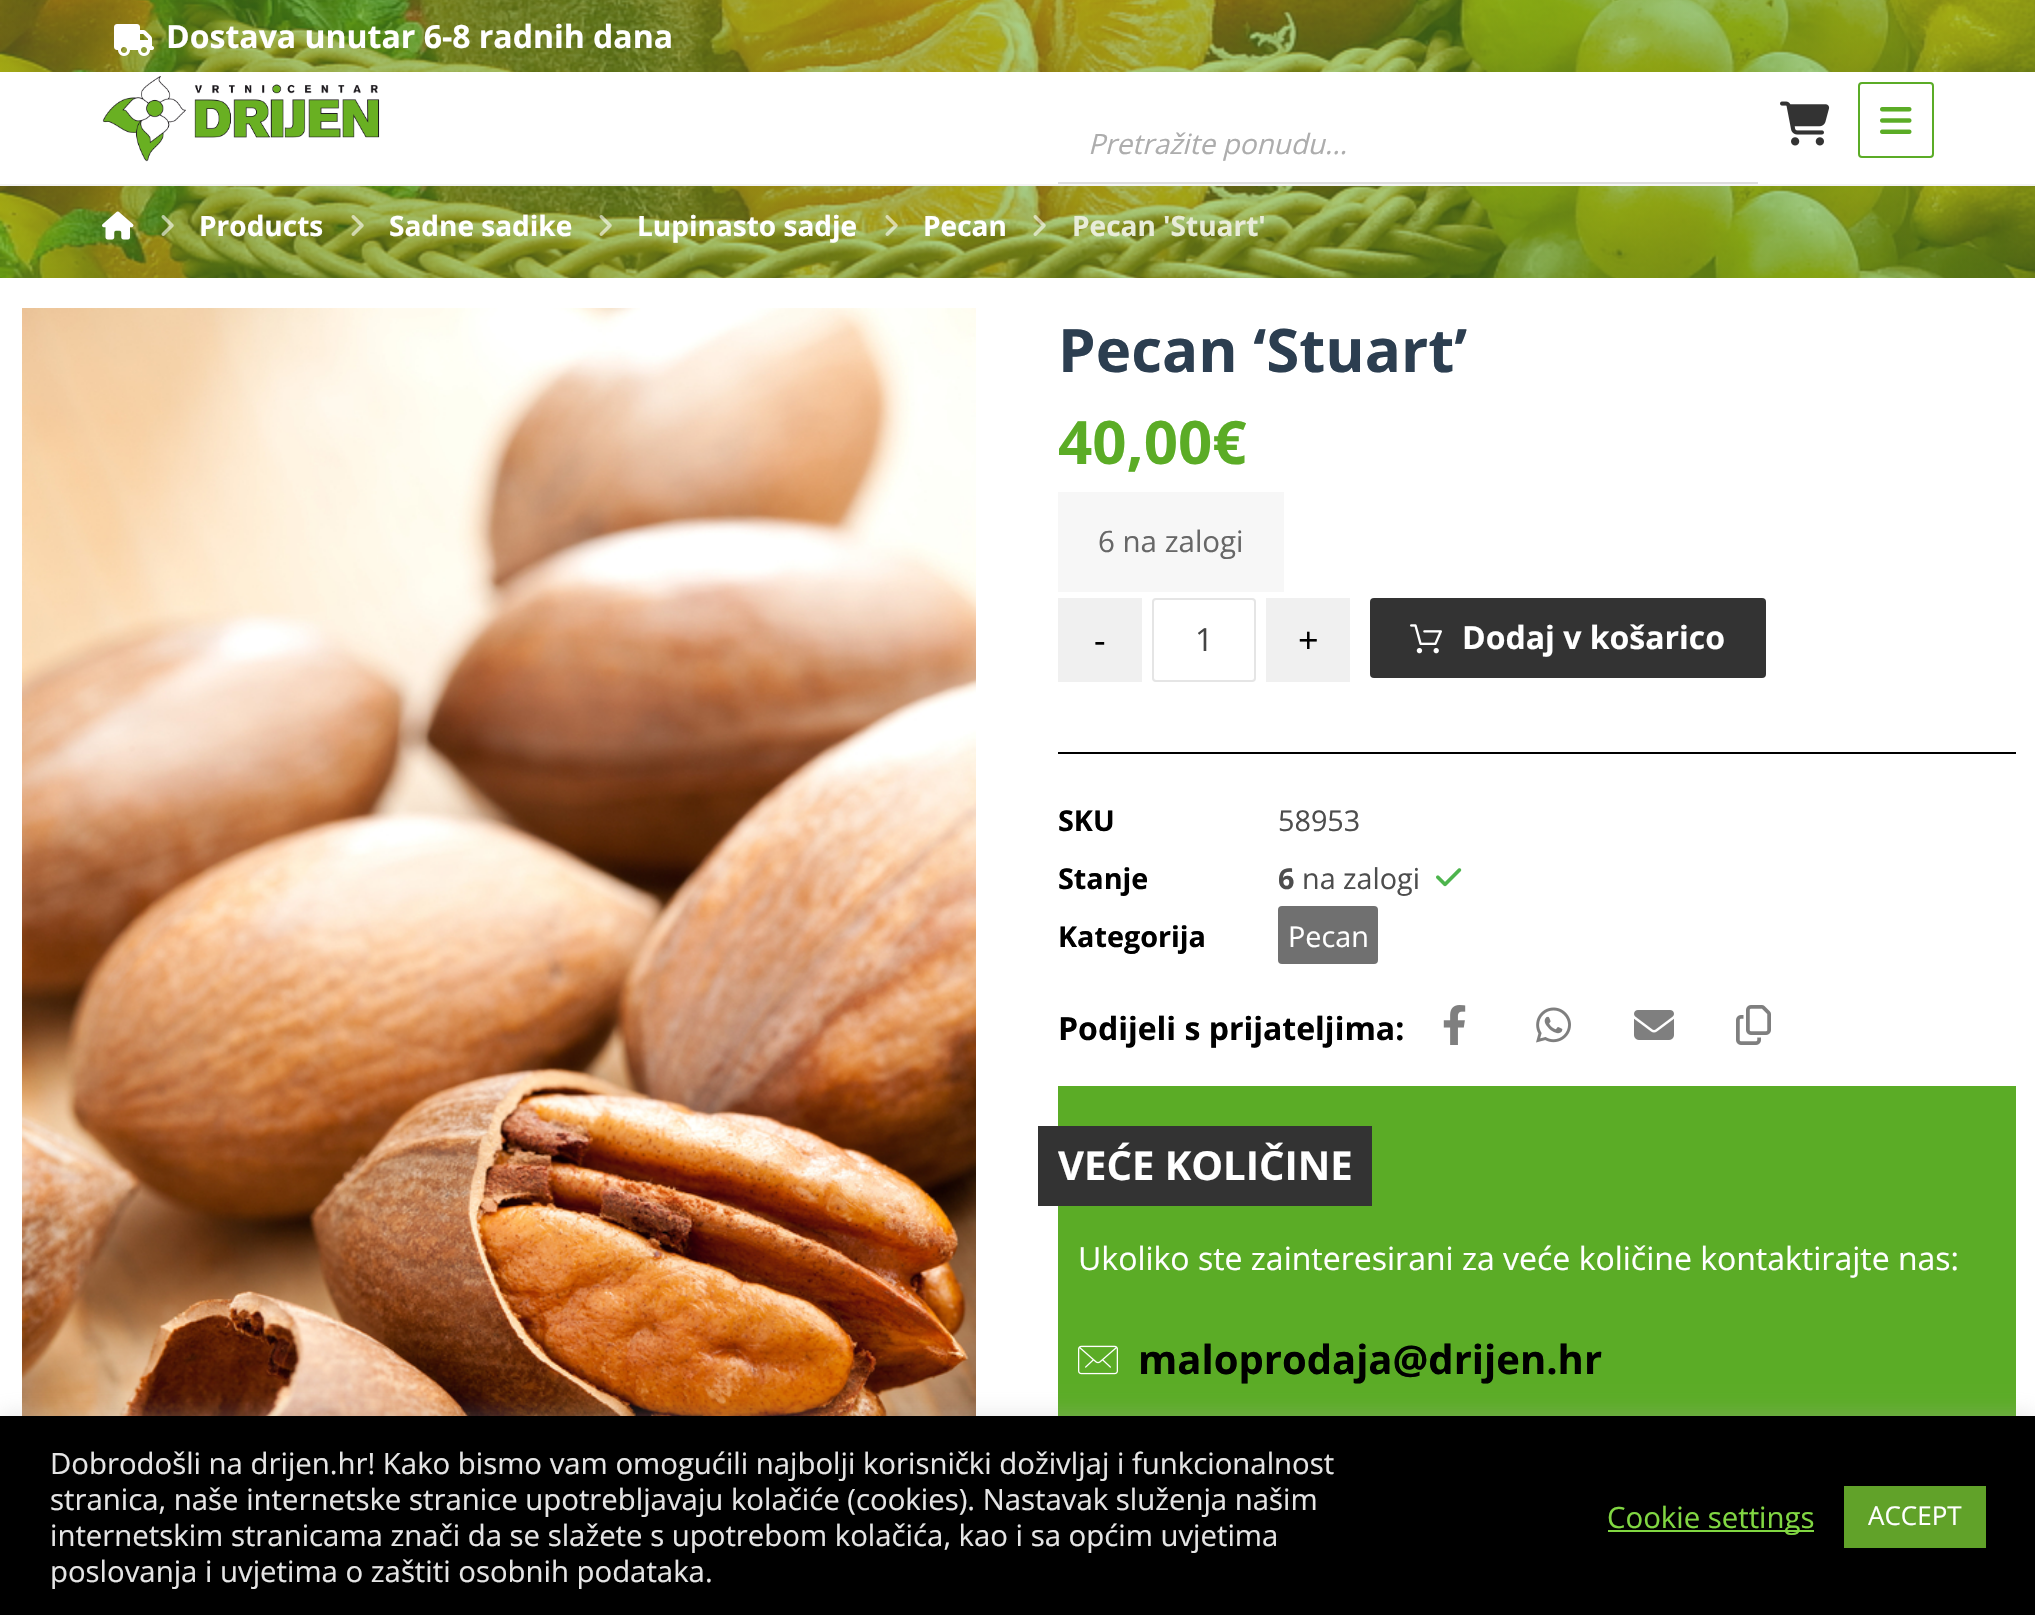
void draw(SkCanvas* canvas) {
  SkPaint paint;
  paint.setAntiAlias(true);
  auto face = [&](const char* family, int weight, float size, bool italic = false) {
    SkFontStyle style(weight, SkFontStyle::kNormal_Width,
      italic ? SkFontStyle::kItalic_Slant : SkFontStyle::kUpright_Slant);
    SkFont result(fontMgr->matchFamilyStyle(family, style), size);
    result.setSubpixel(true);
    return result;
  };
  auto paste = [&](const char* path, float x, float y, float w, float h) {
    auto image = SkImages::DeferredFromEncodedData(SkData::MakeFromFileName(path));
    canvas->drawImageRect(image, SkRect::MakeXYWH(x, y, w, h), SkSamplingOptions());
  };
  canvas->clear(0xffffffff);
  paste("img/1.png", 0, 0, 2035, 72);
  paste("img/2.png", 114, 24, 40, 32);
  paint.setColor(0xfff4f4f4);
  canvas->drawRect(SkRect::MakeXYWH(0, 184, 2035, 2), paint);
  paste("img/3.png", 102, 76, 278, 86);
  paint.setColor(0xffdddddd);
  canvas->drawRect(SkRect::MakeXYWH(1058, 182, 700, 2), paint);
  paste("img/4.png", 1780, 101, 50, 45);
  paint.setStroke(true);
  paint.setStrokeWidth(2);
  paint.setColor(0xff5bac26);
  canvas->drawRoundRect(SkRect::MakeXYWH(1859, 83, 74, 74), 3, 3, paint);
  paste("img/5.png", 1880, 107, 32, 27);
  paste("img/6.png", 0, 186, 2035, 92);
  paste("img/7.png", 102, 211, 32, 29);
  paste("img/8.png", 161, 215, 13, 21);
  paste("img/9.png", 351, 215, 13, 21);
  paste("img/10.png", 599, 215, 13, 21);
  paste("img/11.png", 885, 215, 13, 21);
  paste("img/12.png", 1033, 215, 13, 21);
  paste("img/13.png", 22, 308, 954, 1108);
  paint.setStroke(false);
  paint.setColor(0xfff7f7f7);
  canvas->drawRect(SkRect::MakeXYWH(1058, 492, 226, 100), paint);
  paint.setColor(0xfff0f0f0);
  canvas->drawRect(SkRect::MakeXYWH(1058, 598, 84, 84), paint);
  paint.setStroke(true);
  paint.setColor(0xffe5e5e5);
  canvas->drawRoundRect(SkRect::MakeXYWH(1153, 599, 102, 82), 3, 3, paint);
  paint.setStroke(false);
  paint.setColor(0xfff0f0f0);
  canvas->drawRect(SkRect::MakeXYWH(1266, 598, 84, 84), paint);
  paint.setColor(0xff333333);
  canvas->drawRoundRect(SkRect::MakeXYWH(1370, 598, 396, 80), 4, 4, paint);
  paste("img/14.png", 1410, 624, 32, 30);
  paint.setColor(0xff000000);
  canvas->drawRect(SkRect::MakeXYWH(1058, 752, 958, 2), paint);
  paste("img/15.png", 1436, 868, 26, 19);
  paint.setColor(0xff707070);
  canvas->drawRoundRect(SkRect::MakeXYWH(1278, 906, 100, 58), 4, 4, paint);
  paste("img/16.png", 1443, 1005, 23, 40);
  paste("img/17.png", 1536, 1007, 35, 36);
  paste("img/18.png", 1634, 1010, 40, 30);
  paste("img/19.png", 1736, 1005, 35, 40);
  paint.setColor(0xff5bac26);
  canvas->drawRect(SkRect::MakeXYWH(1058, 1086, 958, 330), paint);
  paint.setColor(0xff333333);
  canvas->drawRect(SkRect::MakeXYWH(1038, 1126, 334, 80), paint);
  paste("img/20.png", 1078, 1345, 40, 30);
  paint.setColor(0x4dacabab);
  paint.setMaskFilter(SkMaskFilter::MakeBlur(kNormal_SkBlurStyle, 10));
  canvas->drawRect(SkRect::MakeXYWH(0, 1414, 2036, 200), paint);
  paint.setMaskFilter(nullptr);
  {
    const struct { float x, y, w, h; SkColor color; } items[] = {
      {0, 1416, 2035, 199, 0xff000000},
      {1608, 1530, 206, 2, 0xff81d742},
      {1844, 1486, 142, 62, 0xff61a229},
    };
    for (auto [x, y, w, h, color] : items) {
      paint.setColor(color);
      canvas->drawRect(SkRect::MakeXYWH(x, y, w, h), paint);
    }
  }
  auto f0 = face("Open Sans", 700, 32);
  paint.setColor(0xffffffff);
  canvas->drawString("Dostava unutar 6-8 radnih dana", 166, 48, f0, paint);
  auto f1 = face("Open Sans", 400, 28, true);
  paint.setColor(0xffadadad);
  canvas->drawString("Pretražite ponudu...", 1088, 154, f1, paint);
  auto f2 = face("Open Sans", 700, 28);
  paint.setColor(0xffffffff);
  {
    const struct { const char* s; float x, y; } items[] = {
      {"Products", 199, 236},
      {"Sadne sadike", 389, 236},
      {"Lupinasto sadje", 637, 236},
      {"Pecan", 923, 236},
    };
    for (auto [s, x, y] : items) {
      canvas->drawString(s, x, y, f2, paint);
    }
  }
  paint.setColor(0xffe8ecd9);
  canvas->drawString("Pecan 'Stuart'", 1072, 236, f2, paint);
  auto f3 = face("Open Sans", 700, 60);
  paint.setColor(0xff2c3e50);
  canvas->drawString("Pecan ‘Stuart’", 1058, 372, f3, paint);
  paint.setColor(0xff5bac26);
  canvas->drawString("40,00€", 1058, 464, f3, paint);
  auto f4 = face("Open Sans", 400, 29.5f);
  paint.setColor(0xff676767);
  canvas->drawString("6 na zalogi", 1098, 552, f4, paint);
  auto f5 = face("Open Sans", 400, 36);
  paint.setColor(0xff000000);
  canvas->drawString("-", 1094, 653, f5, paint);
  auto f6 = face("Open Sans", 400, 32);
  paint.setColor(0xff444444);
  canvas->drawString("1", 1195, 651, f6, paint);
  paint.setColor(0xff000000);
  canvas->drawString("+", 1298, 653, f5, paint);
  paint.setColor(0xffffffff);
  canvas->drawString("Dodaj v košarico", 1462, 649, f0, paint);
  auto f7 = face("Open Sans", 700, 28.75f);
  paint.setColor(0xff000000);
  canvas->drawString("SKU", 1058, 831, f7, paint);
  auto f8 = face("Open Sans", 400, 28.75f);
  paint.setColor(0xff4d4d4d);
  canvas->drawString("58953", 1278, 831, f8, paint);
  paint.setColor(0xff000000);
  canvas->drawString("Stanje", 1058, 889, f7, paint);
  paint.setColor(0xff4d4d4d);
  canvas->drawString("6", 1278, 889, f7, paint);
  canvas->drawString("na zalogi", 1302, 889, f8, paint);
  paint.setColor(0xff000000);
  canvas->drawString("Kategorija", 1058, 947, f7, paint);
  paint.setColor(0xffffffff);
  canvas->drawString("Pecan", 1288, 947, f8, paint);
  paint.setColor(0xff000000);
  canvas->drawString("Podijeli s prijateljima:", 1058, 1040, f0, paint);
  auto f9 = face("Open Sans", 700, 40);
  paint.setColor(0xffffffff);
  canvas->drawString("VEĆE KOLIČINE", 1058, 1180, f9, paint);
  canvas->drawString("Ukoliko ste zainteresirani za veće količine kontaktirajte nas:", 1078, 1270, f6, paint);
  paint.setColor(0xff000000);
  canvas->drawString("maloprodaja@drijen.hr", 1138, 1374, f9, paint);
  auto f10 = face("Open Sans", 400, 29.35f);
  paint.setColor(0xffe5e5e5);
  {
    const struct { const char* s; float x, y; } items[] = {
      {"Dobrodošli na drijen.hr! Kako bismo vam omogućili najbolji korisnički doživljaj i funkcionalnost", 50, 1474},
      {"stranica, naše internetske stranice upotrebljavaju kolačiće (cookies). Nastavak služenja našim", 50, 1510},
      {"internetskim stranicama znači da se slažete s upotrebom kolačića, kao i sa općim uvjetima", 50, 1546},
      {"poslovanja i uvjetima o zaštiti osobnih podataka.", 50, 1582},
    };
    for (auto [s, x, y] : items) {
      canvas->drawString(s, x, y, f10, paint);
    }
  }
  paint.setColor(0xff81d742);
  canvas->drawString("Cookie settings", 1607, 1528, f10, paint);
  auto f11 = face("Open Sans", 400, 26);
  paint.setColor(0xffffffff);
  canvas->drawString("ACCEPT", 1868, 1525, f11, paint);
}
